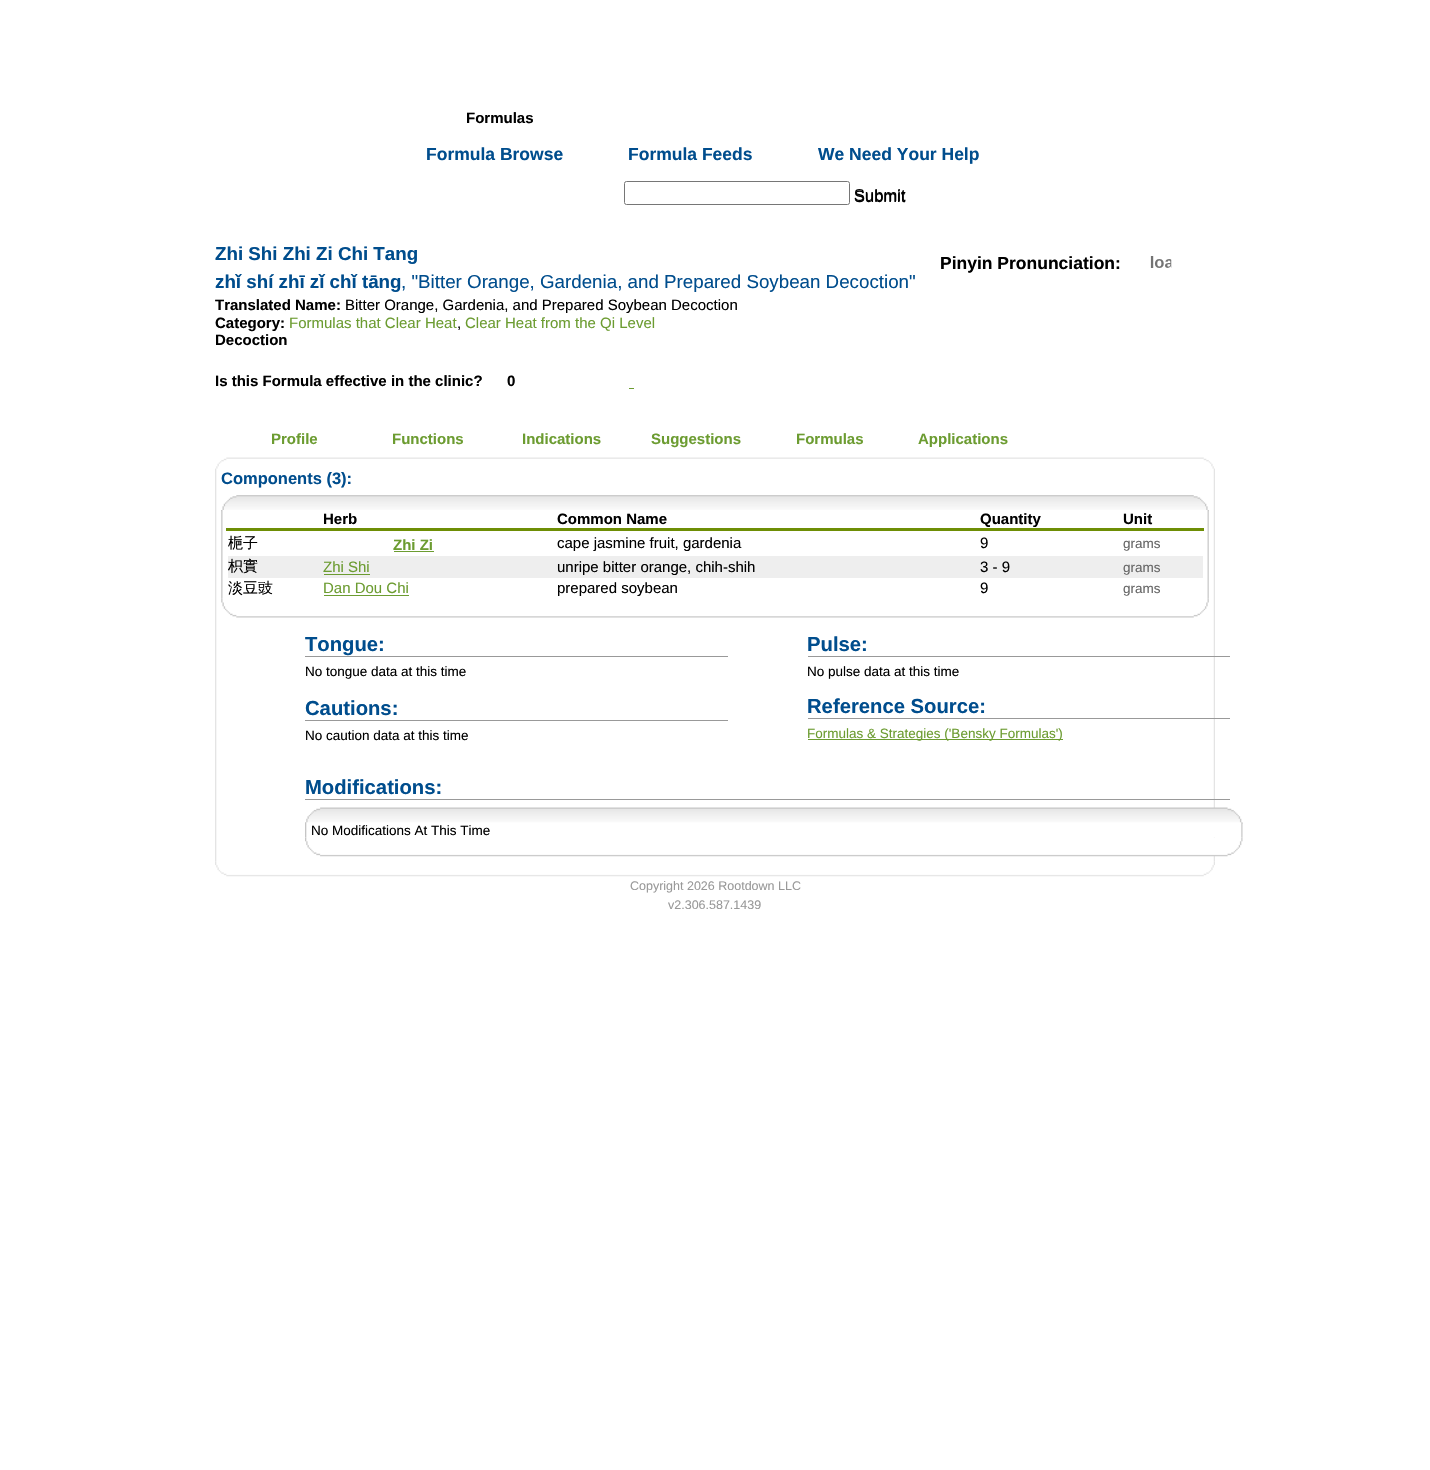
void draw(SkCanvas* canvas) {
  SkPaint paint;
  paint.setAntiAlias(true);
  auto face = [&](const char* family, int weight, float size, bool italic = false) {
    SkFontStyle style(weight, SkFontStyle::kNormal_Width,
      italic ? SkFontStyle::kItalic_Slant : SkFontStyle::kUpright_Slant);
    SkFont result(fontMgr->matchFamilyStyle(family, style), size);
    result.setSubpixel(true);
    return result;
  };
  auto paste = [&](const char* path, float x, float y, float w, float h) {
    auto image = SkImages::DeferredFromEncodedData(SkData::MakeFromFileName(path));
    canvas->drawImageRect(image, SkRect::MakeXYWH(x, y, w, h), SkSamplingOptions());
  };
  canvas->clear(0xffffffff);
  paint.setStroke(true);
  paint.setStrokeWidth(1);
  paint.setColor(0xff767676);
  canvas->drawRoundRect(SkRect::MakeXYWH(624.5f, 181.5f, 225, 23), 2, 2, paint);
  paste("img/1.png", 854, 189, 52, 12);
  paint.setStroke(false);
  paint.setColor(0xff6c9c31);
  canvas->drawRect(SkRect::MakeXYWH(629, 388, 5, 1), paint);
  paste("img/2.png", 1150, 256, 22, 12);
  paste("img/3.png", 215, 457, 1000, 12);
  paste("img/4.png", 215, 468, 1000, 394);
  paste("img/5.png", 221, 495, 988, 17);
  paste("img/6.png", 221, 510, 988, 89);
  {
    const struct { float x, y, w, h; SkColor color; } items[] = {
      {226, 528, 978, 3, 0xff6e8e05},
      {394, 551, 40, 1, 0xff6c9c31},
      {228, 556, 975, 22, 0xffeeeeee},
      {324, 574, 46, 1, 0xff6c9c31},
      {324, 595, 85, 1, 0xff6c9c31},
    };
    for (auto [x, y, w, h, color] : items) {
      paint.setColor(color);
      canvas->drawRect(SkRect::MakeXYWH(x, y, w, h), paint);
    }
  }
  paste("img/7.png", 221, 598, 988, 20);
  {
    const struct { float x, y, w, h; SkColor color; } items[] = {
      {305, 656, 423, 1, 0xff999999},
      {808, 656, 422, 1, 0xff999999},
      {305, 720, 423, 1, 0xff999999},
      {808, 718, 422, 1, 0xff999999},
      {808, 739, 255, 1, 0xff6c9c31},
      {305, 799, 925, 1, 0xff999999},
    };
    for (auto [x, y, w, h, color] : items) {
      paint.setColor(color);
      canvas->drawRect(SkRect::MakeXYWH(x, y, w, h), paint);
    }
  }
  paste("img/8.png", 305, 807, 938, 17);
  paste("img/9.png", 305, 822, 938, 16);
  paste("img/10.png", 305, 837, 938, 20);
  paste("img/11.png", 215, 861, 1000, 16);
  auto f0 = face("Liberation Sans", 700, 15);
  paint.setColor(0xff000000);
  canvas->drawString("Formulas", 466, 123, f0, paint);
  auto f1 = face("Liberation Sans", 700, 17.5f);
  paint.setColor(0xff004d8d);
  {
    const struct { const char* s; float x, y; } items[] = {
      {"Formula Browse", 426, 160},
      {"Formula Feeds", 628, 160},
      {"We Need Your Help", 818, 160},
    };
    for (auto [s, x, y] : items) {
      canvas->drawString(s, x, y, f1, paint);
    }
  }
  auto f2 = face("Liberation Sans", 400, 16.5f);
  paint.setColor(0xff000000);
  canvas->drawString("Submit", 854, 202, f2, paint);
  auto f3 = face("Liberation Sans", 700, 18.75f);
  paint.setColor(0xff004d8d);
  canvas->drawString("Zhi Shi Zhi Zi Chi Tang", 215, 260, f3, paint);
  canvas->drawString("zhǐ shí zhī zǐ chǐ tāng", 215, 288, f3, paint);
  auto f4 = face("Liberation Sans", 400, 18.75f);
  canvas->drawString(", \"Bitter Orange, Gardenia, and Prepared Soybean Decoction\"", 401, 288, f4, paint);
  paint.setColor(0xff000000);
  canvas->drawString("Translated Name:", 215, 310, f0, paint);
  auto f5 = face("Liberation Sans", 400, 15);
  canvas->drawString("Bitter Orange, Gardenia, and Prepared Soybean Decoction", 345, 310, f5, paint);
  canvas->drawString("Category:", 215, 328, f0, paint);
  paint.setColor(0xff6c9c31);
  canvas->drawString("Formulas that Clear Heat", 289, 328, f5, paint);
  paint.setColor(0xff000000);
  canvas->drawString(",", 457, 328, f5, paint);
  paint.setColor(0xff6c9c31);
  canvas->drawString("Clear Heat from the Qi Level", 465, 328, f5, paint);
  paint.setColor(0xff000000);
  {
    const struct { const char* s; float x, y; } items[] = {
      {"Decoction", 215, 345},
      {"Is this Formula effective in the clinic?", 215, 386},
      {"0", 507, 386},
    };
    for (auto [s, x, y] : items) {
      canvas->drawString(s, x, y, f0, paint);
    }
  }
  canvas->drawString("Pinyin Pronunciation:", 940, 269, f1, paint);
  paint.setColor(0xff6c9c31);
  {
    const struct { const char* s; float x, y; } items[] = {
      {"Profile", 271, 444},
      {"Functions", 392, 444},
      {"Indications", 522, 444},
      {"Suggestions", 651, 444},
      {"Formulas", 796, 444},
      {"Applications", 918, 444},
    };
    for (auto [s, x, y] : items) {
      canvas->drawString(s, x, y, f0, paint);
    }
  }
  auto f6 = face("Liberation Sans", 700, 16.5f);
  paint.setColor(0xff004d8d);
  canvas->drawString("Components (3):", 221, 484, f6, paint);
  paint.setColor(0xff000000);
  {
    const struct { const char* s; float x, y; } items[] = {
      {"Herb", 323, 524},
      {"Common Name", 557, 524},
      {"Quantity", 980, 524},
      {"Unit", 1123, 524},
    };
    for (auto [s, x, y] : items) {
      canvas->drawString(s, x, y, f0, paint);
    }
  }
  auto f7 = face("WenQuanYi Zen Hei", 500, 15);
  canvas->drawString("梔子", 228, 548, f7, paint);
  paint.setColor(0xff6c9c31);
  canvas->drawString("Zhi Zi", 393, 550, f0, paint);
  paint.setColor(0xff000000);
  canvas->drawString("cape jasmine fruit, gardenia", 557, 548, f5, paint);
  canvas->drawString("9", 980, 548, f5, paint);
  auto f8 = face("Liberation Sans", 400, 13.5f);
  paint.setColor(0xff666666);
  canvas->drawString("grams", 1123, 548, f8, paint);
  paint.setColor(0xff000000);
  canvas->drawString("枳實", 228, 571, f7, paint);
  paint.setColor(0xff6c9c31);
  canvas->drawString("Zhi Shi", 323, 572, f5, paint);
  paint.setColor(0xff000000);
  canvas->drawString("unripe bitter orange, chih-shih", 557, 572, f5, paint);
  canvas->drawString("3 - 9", 980, 572, f5, paint);
  paint.setColor(0xff666666);
  canvas->drawString("grams", 1123, 572, f8, paint);
  paint.setColor(0xff000000);
  canvas->drawString("淡豆豉", 228, 593, f7, paint);
  paint.setColor(0xff6c9c31);
  canvas->drawString("Dan Dou Chi", 323, 593, f5, paint);
  paint.setColor(0xff000000);
  canvas->drawString("prepared soybean", 557, 593, f5, paint);
  canvas->drawString("9", 980, 593, f5, paint);
  paint.setColor(0xff666666);
  canvas->drawString("grams", 1123, 593, f8, paint);
  auto f9 = face("Liberation Sans", 700, 20.25f);
  paint.setColor(0xff004d8d);
  canvas->drawString("Tongue:", 305, 651, f9, paint);
  paint.setColor(0xff000000);
  canvas->drawString("No tongue data at this time", 305, 676, f8, paint);
  paint.setColor(0xff004d8d);
  canvas->drawString("Pulse:", 807, 651, f9, paint);
  paint.setColor(0xff000000);
  canvas->drawString("No pulse data at this time", 807, 676, f8, paint);
  paint.setColor(0xff004d8d);
  canvas->drawString("Cautions:", 305, 715, f9, paint);
  paint.setColor(0xff000000);
  canvas->drawString("No caution data at this time", 305, 740, f8, paint);
  paint.setColor(0xff004d8d);
  canvas->drawString("Reference Source:", 807, 713, f9, paint);
  paint.setColor(0xff6c9c31);
  canvas->drawString("Formulas & Strategies ('Bensky Formulas')", 807, 738, f8, paint);
  paint.setColor(0xff004d8d);
  canvas->drawString("Modifications:", 305, 794, f9, paint);
  paint.setColor(0xff000000);
  canvas->drawString("No Modifications At This Time", 311, 835, f8, paint);
  auto f10 = face("Liberation Sans", 400, 12.5f);
  paint.setColor(0xff999999);
  canvas->drawString("Copyright 2026 Rootdown LLC", 630, 890, f10, paint);
  canvas->drawString("v2.306.587.1439", 668, 909, f10, paint);
}
